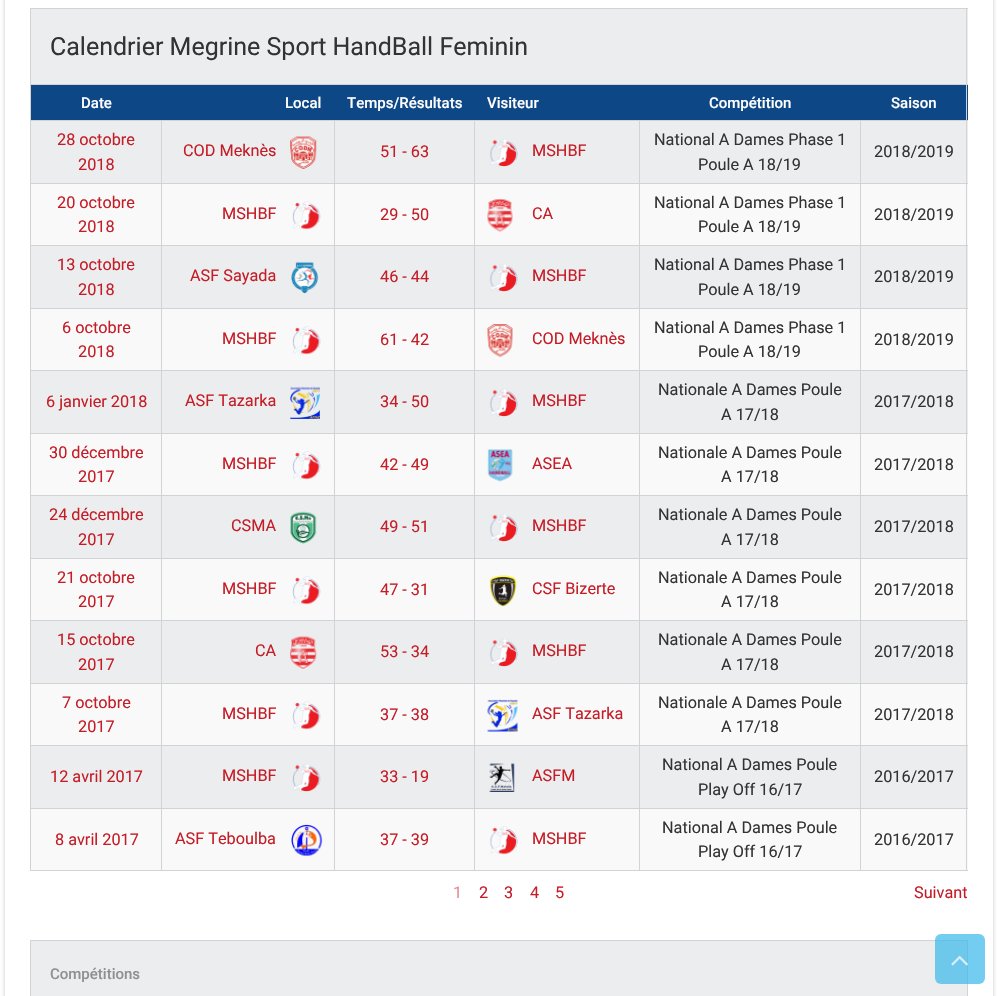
void draw(SkCanvas* canvas) {
  SkPaint paint;
  paint.setAntiAlias(true);
  auto face = [&](const char* family, int weight, float size, bool italic = false) {
    SkFontStyle style(weight, SkFontStyle::kNormal_Width,
      italic ? SkFontStyle::kItalic_Slant : SkFontStyle::kUpright_Slant);
    SkFont result(fontMgr->matchFamilyStyle(family, style), size);
    result.setSubpixel(true);
    return result;
  };
  auto paste = [&](const char* path, float x, float y, float w, float h) {
    auto image = SkImages::DeferredFromEncodedData(SkData::MakeFromFileName(path));
    canvas->drawImageRect(image, SkRect::MakeXYWH(x, y, w, h), SkSamplingOptions());
  };
  canvas->clear(0xffffffff);
  paint.setColor(0xffcacaca);
  paint.setMaskFilter(SkMaskFilter::MakeBlur(kNormal_SkBlurStyle, 2));
  canvas->drawRect(SkRect::MakeXYWH(5, -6, 988, 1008), paint);
  paint.setMaskFilter(nullptr);
  {
    const struct { float x, y, w, h; SkColor color; } items[] = {
      {5, 0, 988, 996, 0xffffffff},
      {31, 9, 937, 75, 0xffecedee},
      {30, 8, 938, 1, 0xffd2d3d4},
      {966, 8, 1, 76, 0xffd2d3d4},
      {30, 8, 1, 76, 0xffd2d3d4},
      {31, 121, 937, 687, 0xffecedee},
      {30, 84, 938, 1, 0xffd2d3d4},
      {31, 85, 937, 35, 0xff0d4785},
      {31, 184, 937, 61, 0xfff9f9f9},
      {31, 309, 937, 61, 0xfff9f9f9},
      {31, 434, 937, 61, 0xfff9f9f9},
      {31, 559, 937, 61, 0xfff9f9f9},
      {31, 684, 937, 61, 0xfff9f9f9},
      {31, 809, 937, 61, 0xfff9f9f9},
      {966, 84, 1, 787, 0xffd2d3d4},
      {30, 870, 938, 1, 0xffd2d3d4},
      {30, 84, 1, 787, 0xffd2d3d4},
      {860, 120, 108, 1, 0xffd2d3d4},
      {860, 183, 108, 1, 0xffd2d3d4},
      {860, 245, 108, 1, 0xffd2d3d4},
      {860, 308, 108, 1, 0xffd2d3d4},
      {860, 370, 108, 1, 0xffd2d3d4},
      {860, 433, 108, 1, 0xffd2d3d4},
      {860, 495, 108, 1, 0xffd2d3d4},
      {860, 558, 108, 1, 0xffd2d3d4},
      {860, 620, 108, 1, 0xffd2d3d4},
      {860, 683, 108, 1, 0xffd2d3d4},
      {860, 745, 108, 1, 0xffd2d3d4},
      {860, 808, 108, 1, 0xffd2d3d4},
      {860, 808, 1, 63, 0xffd2d3d4},
      {639, 808, 222, 1, 0xffd2d3d4},
      {860, 745, 1, 64, 0xffd2d3d4},
      {639, 745, 222, 1, 0xffd2d3d4},
      {860, 683, 1, 63, 0xffd2d3d4},
      {639, 683, 222, 1, 0xffd2d3d4},
      {860, 620, 1, 64, 0xffd2d3d4},
      {639, 620, 222, 1, 0xffd2d3d4},
      {860, 558, 1, 63, 0xffd2d3d4},
      {639, 558, 222, 1, 0xffd2d3d4},
      {860, 495, 1, 64, 0xffd2d3d4},
      {639, 495, 222, 1, 0xffd2d3d4},
      {860, 433, 1, 63, 0xffd2d3d4},
      {639, 433, 222, 1, 0xffd2d3d4},
      {860, 370, 1, 64, 0xffd2d3d4},
      {639, 370, 222, 1, 0xffd2d3d4},
      {860, 308, 1, 63, 0xffd2d3d4},
      {639, 308, 222, 1, 0xffd2d3d4},
      {860, 245, 1, 64, 0xffd2d3d4},
      {639, 245, 222, 1, 0xffd2d3d4},
      {860, 183, 1, 63, 0xffd2d3d4},
      {639, 183, 222, 1, 0xffd2d3d4},
      {860, 120, 1, 64, 0xffd2d3d4},
      {639, 120, 222, 1, 0xffd2d3d4},
      {639, 808, 1, 63, 0xffd2d3d4},
      {474, 808, 166, 1, 0xffd2d3d4},
      {639, 745, 1, 64, 0xffd2d3d4},
      {474, 745, 166, 1, 0xffd2d3d4},
      {639, 683, 1, 63, 0xffd2d3d4},
      {474, 683, 166, 1, 0xffd2d3d4},
      {639, 620, 1, 64, 0xffd2d3d4},
      {474, 620, 166, 1, 0xffd2d3d4},
      {639, 558, 1, 63, 0xffd2d3d4},
      {474, 558, 166, 1, 0xffd2d3d4},
      {639, 495, 1, 64, 0xffd2d3d4},
      {474, 495, 166, 1, 0xffd2d3d4},
      {639, 433, 1, 63, 0xffd2d3d4},
      {474, 433, 166, 1, 0xffd2d3d4},
      {639, 370, 1, 64, 0xffd2d3d4},
      {474, 370, 166, 1, 0xffd2d3d4},
      {639, 308, 1, 63, 0xffd2d3d4},
      {474, 308, 166, 1, 0xffd2d3d4},
      {639, 245, 1, 64, 0xffd2d3d4},
      {474, 245, 166, 1, 0xffd2d3d4},
      {639, 183, 1, 63, 0xffd2d3d4},
      {474, 183, 166, 1, 0xffd2d3d4},
      {639, 120, 1, 64, 0xffd2d3d4},
      {474, 120, 166, 1, 0xffd2d3d4},
      {474, 808, 1, 63, 0xffd2d3d4},
      {334, 808, 141, 1, 0xffd2d3d4},
      {474, 745, 1, 64, 0xffd2d3d4},
      {334, 745, 141, 1, 0xffd2d3d4},
      {474, 683, 1, 63, 0xffd2d3d4},
      {334, 683, 141, 1, 0xffd2d3d4},
      {474, 620, 1, 64, 0xffd2d3d4},
      {334, 620, 141, 1, 0xffd2d3d4},
      {474, 558, 1, 63, 0xffd2d3d4},
      {334, 558, 141, 1, 0xffd2d3d4},
      {474, 495, 1, 64, 0xffd2d3d4},
      {334, 495, 141, 1, 0xffd2d3d4},
      {474, 433, 1, 63, 0xffd2d3d4},
      {334, 433, 141, 1, 0xffd2d3d4},
      {474, 370, 1, 64, 0xffd2d3d4},
      {334, 370, 141, 1, 0xffd2d3d4},
      {474, 308, 1, 63, 0xffd2d3d4},
      {334, 308, 141, 1, 0xffd2d3d4},
      {474, 245, 1, 64, 0xffd2d3d4},
      {334, 245, 141, 1, 0xffd2d3d4},
      {474, 183, 1, 63, 0xffd2d3d4},
      {334, 183, 141, 1, 0xffd2d3d4},
      {474, 120, 1, 64, 0xffd2d3d4},
      {334, 120, 141, 1, 0xffd2d3d4},
      {334, 808, 1, 63, 0xffd2d3d4},
      {161, 808, 174, 1, 0xffd2d3d4},
      {334, 745, 1, 64, 0xffd2d3d4},
      {161, 745, 174, 1, 0xffd2d3d4},
      {334, 683, 1, 63, 0xffd2d3d4},
      {161, 683, 174, 1, 0xffd2d3d4},
      {334, 620, 1, 64, 0xffd2d3d4},
      {161, 620, 174, 1, 0xffd2d3d4},
      {334, 558, 1, 63, 0xffd2d3d4},
      {161, 558, 174, 1, 0xffd2d3d4},
      {334, 495, 1, 64, 0xffd2d3d4},
      {161, 495, 174, 1, 0xffd2d3d4},
      {334, 433, 1, 63, 0xffd2d3d4},
      {161, 433, 174, 1, 0xffd2d3d4},
      {334, 370, 1, 64, 0xffd2d3d4},
      {161, 370, 174, 1, 0xffd2d3d4},
      {334, 308, 1, 63, 0xffd2d3d4},
      {161, 308, 174, 1, 0xffd2d3d4},
      {334, 245, 1, 64, 0xffd2d3d4},
      {161, 245, 174, 1, 0xffd2d3d4},
      {334, 183, 1, 63, 0xffd2d3d4},
      {161, 183, 174, 1, 0xffd2d3d4},
      {334, 120, 1, 64, 0xffd2d3d4},
      {161, 120, 174, 1, 0xffd2d3d4},
      {161, 808, 1, 63, 0xffd2d3d4},
      {30, 808, 133, 1, 0xffd2d3d4},
      {161, 745, 1, 64, 0xffd2d3d4},
      {30, 745, 133, 1, 0xffd2d3d4},
      {161, 683, 1, 63, 0xffd2d3d4},
      {30, 683, 133, 1, 0xffd2d3d4},
      {161, 620, 1, 64, 0xffd2d3d4},
      {30, 620, 133, 1, 0xffd2d3d4},
      {161, 558, 1, 63, 0xffd2d3d4},
      {30, 558, 133, 1, 0xffd2d3d4},
      {161, 495, 1, 64, 0xffd2d3d4},
      {30, 495, 133, 1, 0xffd2d3d4},
      {161, 433, 1, 63, 0xffd2d3d4},
      {30, 433, 133, 1, 0xffd2d3d4},
      {161, 370, 1, 64, 0xffd2d3d4},
      {30, 370, 133, 1, 0xffd2d3d4},
      {161, 308, 1, 63, 0xffd2d3d4},
      {30, 308, 133, 1, 0xffd2d3d4},
      {161, 245, 1, 64, 0xffd2d3d4},
      {30, 245, 133, 1, 0xffd2d3d4},
      {161, 183, 1, 63, 0xffd2d3d4},
      {30, 183, 133, 1, 0xffd2d3d4},
      {161, 120, 1, 64, 0xffd2d3d4},
      {30, 120, 133, 1, 0xffd2d3d4},
    };
    for (auto [x, y, w, h, color] : items) {
      paint.setColor(color);
      canvas->drawRect(SkRect::MakeXYWH(x, y, w, h), paint);
    }
  }
  paste("img/1.png", 290, 136, 27, 33);
  paste("img/2.png", 489, 138, 29, 29);
  paste("img/3.png", 292, 201, 29, 29);
  paste("img/4.png", 487, 199, 26, 33);
  paste("img/5.png", 291, 261, 28, 33);
  paste("img/2.png", 489, 263, 29, 29);
  paste("img/3.png", 292, 326, 29, 29);
  paste("img/6.png", 487, 324, 26, 33);
  paste("img/7.png", 290, 386, 30, 33);
  paste("img/2.png", 489, 388, 29, 29);
  paste("img/3.png", 292, 451, 29, 29);
  paste("img/8.png", 487, 449, 26, 33);
  paste("img/9.png", 290, 511, 27, 33);
  paste("img/2.png", 489, 513, 29, 29);
  paste("img/3.png", 292, 576, 29, 29);
  paste("img/10.png", 489, 575, 28, 32);
  paste("img/11.png", 290, 636, 27, 33);
  paste("img/2.png", 489, 638, 29, 29);
  paste("img/3.png", 292, 701, 29, 29);
  paste("img/12.png", 487, 699, 31, 33);
  paste("img/13.png", 292, 764, 29, 28);
  paste("img/14.png", 489, 763, 26, 29);
  paste("img/15.png", 291, 824, 32, 33);
  paste("img/16.png", 489, 826, 29, 29);
  paint.setColor(0xffecedee);
  canvas->drawRect(SkRect::MakeXYWH(30.5f, 940.5f, 937, 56), paint);
  paint.setStroke(true);
  paint.setStrokeWidth(1);
  paint.setColor(0xffd2d3d4);
  canvas->drawRect(SkRect::MakeXYWH(30.5f, 940.5f, 937, 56), paint);
  paint.setStroke(false);
  paint.setColor(0xb337b8eb);
  canvas->drawRoundRect(SkRect::MakeXYWH(935, 934, 50, 50), 6, 6, paint);
  paste("img/17.png", 951, 955, 17, 11);
  auto f0 = face("Roboto", 400, 25);
  paint.setColor(0xff333333);
  canvas->drawString("Calendrier Megrine Sport HandBall Feminin", 50, 55, f0, paint);
  auto f1 = face("Roboto", 500, 15);
  paint.setColor(0xffffffff);
  {
    const struct { const char* s; float x, y; } items[] = {
      {"Date", 81, 108},
      {"Local", 285, 108},
      {"Temps/Résultats", 347, 108},
      {"Visiteur", 487, 108},
      {"Compétition", 709, 108},
      {"Saison", 891, 108},
    };
    for (auto [s, x, y] : items) {
      canvas->drawString(s, x, y, f1, paint);
    }
  }
  auto f2 = face("Roboto", 400, 16.25f);
  paint.setColor(0xffc51d27);
  {
    const struct { const char* s; float x, y; } items[] = {
      {"28 octobre", 57, 145},
      {"2018", 78, 170},
      {"COD Meknès", 183, 156},
      {"51 - 63", 380, 157},
      {"MSHBF", 532, 156},
    };
    for (auto [s, x, y] : items) {
      canvas->drawString(s, x, y, f2, paint);
    }
  }
  paint.setColor(0xff333333);
  {
    const struct { const char* s; float x, y; } items[] = {
      {"National A Dames Phase 1", 654, 145},
      {"Poule A 18/19", 698, 170},
      {"2018/2019", 874, 157},
    };
    for (auto [s, x, y] : items) {
      canvas->drawString(s, x, y, f2, paint);
    }
  }
  paint.setColor(0xffc51d27);
  {
    const struct { const char* s; float x, y; } items[] = {
      {"20 octobre", 57, 208},
      {"2018", 78, 232},
      {"MSHBF", 222, 219},
      {"29 - 50", 380, 220},
      {"CA", 532, 219},
    };
    for (auto [s, x, y] : items) {
      canvas->drawString(s, x, y, f2, paint);
    }
  }
  paint.setColor(0xff333333);
  {
    const struct { const char* s; float x, y; } items[] = {
      {"National A Dames Phase 1", 654, 208},
      {"Poule A 18/19", 698, 232},
      {"2018/2019", 874, 220},
    };
    for (auto [s, x, y] : items) {
      canvas->drawString(s, x, y, f2, paint);
    }
  }
  paint.setColor(0xffc51d27);
  {
    const struct { const char* s; float x, y; } items[] = {
      {"13 octobre", 57, 270},
      {"2018", 78, 295},
      {"ASF Sayada", 190, 281},
      {"46 - 44", 380, 282},
      {"MSHBF", 532, 281},
    };
    for (auto [s, x, y] : items) {
      canvas->drawString(s, x, y, f2, paint);
    }
  }
  paint.setColor(0xff333333);
  {
    const struct { const char* s; float x, y; } items[] = {
      {"National A Dames Phase 1", 654, 270},
      {"Poule A 18/19", 698, 295},
      {"2018/2019", 874, 282},
    };
    for (auto [s, x, y] : items) {
      canvas->drawString(s, x, y, f2, paint);
    }
  }
  paint.setColor(0xffc51d27);
  {
    const struct { const char* s; float x, y; } items[] = {
      {"6 octobre", 62, 333},
      {"2018", 78, 357},
      {"MSHBF", 222, 344},
      {"61 - 42", 380, 345},
      {"COD Meknès", 532, 344},
    };
    for (auto [s, x, y] : items) {
      canvas->drawString(s, x, y, f2, paint);
    }
  }
  paint.setColor(0xff333333);
  {
    const struct { const char* s; float x, y; } items[] = {
      {"National A Dames Phase 1", 654, 333},
      {"Poule A 18/19", 698, 357},
      {"2018/2019", 874, 345},
    };
    for (auto [s, x, y] : items) {
      canvas->drawString(s, x, y, f2, paint);
    }
  }
  paint.setColor(0xffc51d27);
  {
    const struct { const char* s; float x, y; } items[] = {
      {"6 janvier 2018", 46, 407},
      {"ASF Tazarka", 185, 406},
      {"34 - 50", 380, 407},
      {"MSHBF", 532, 406},
    };
    for (auto [s, x, y] : items) {
      canvas->drawString(s, x, y, f2, paint);
    }
  }
  paint.setColor(0xff333333);
  {
    const struct { const char* s; float x, y; } items[] = {
      {"Nationale A Dames Poule", 658, 395},
      {"A 17/18", 721, 420},
      {"2017/2018", 874, 407},
    };
    for (auto [s, x, y] : items) {
      canvas->drawString(s, x, y, f2, paint);
    }
  }
  paint.setColor(0xffc51d27);
  {
    const struct { const char* s; float x, y; } items[] = {
      {"30 décembre", 49, 458},
      {"2017", 78, 482},
      {"MSHBF", 222, 469},
      {"42 - 49", 380, 470},
      {"ASEA", 532, 469},
    };
    for (auto [s, x, y] : items) {
      canvas->drawString(s, x, y, f2, paint);
    }
  }
  paint.setColor(0xff333333);
  {
    const struct { const char* s; float x, y; } items[] = {
      {"Nationale A Dames Poule", 658, 458},
      {"A 17/18", 721, 482},
      {"2017/2018", 874, 470},
    };
    for (auto [s, x, y] : items) {
      canvas->drawString(s, x, y, f2, paint);
    }
  }
  paint.setColor(0xffc51d27);
  {
    const struct { const char* s; float x, y; } items[] = {
      {"24 décembre", 49, 520},
      {"2017", 78, 545},
      {"CSMA", 231, 531},
      {"49 - 51", 380, 532},
      {"MSHBF", 532, 531},
    };
    for (auto [s, x, y] : items) {
      canvas->drawString(s, x, y, f2, paint);
    }
  }
  paint.setColor(0xff333333);
  {
    const struct { const char* s; float x, y; } items[] = {
      {"Nationale A Dames Poule", 658, 520},
      {"A 17/18", 721, 545},
      {"2017/2018", 874, 532},
    };
    for (auto [s, x, y] : items) {
      canvas->drawString(s, x, y, f2, paint);
    }
  }
  paint.setColor(0xffc51d27);
  {
    const struct { const char* s; float x, y; } items[] = {
      {"21 octobre", 57, 583},
      {"2017", 78, 607},
      {"MSHBF", 222, 594},
      {"47 - 31", 380, 595},
      {"CSF Bizerte", 532, 594},
    };
    for (auto [s, x, y] : items) {
      canvas->drawString(s, x, y, f2, paint);
    }
  }
  paint.setColor(0xff333333);
  {
    const struct { const char* s; float x, y; } items[] = {
      {"Nationale A Dames Poule", 658, 583},
      {"A 17/18", 721, 607},
      {"2017/2018", 874, 595},
    };
    for (auto [s, x, y] : items) {
      canvas->drawString(s, x, y, f2, paint);
    }
  }
  paint.setColor(0xffc51d27);
  {
    const struct { const char* s; float x, y; } items[] = {
      {"15 octobre", 57, 645},
      {"2017", 78, 670},
      {"CA", 255, 656},
      {"53 - 34", 380, 657},
      {"MSHBF", 532, 656},
    };
    for (auto [s, x, y] : items) {
      canvas->drawString(s, x, y, f2, paint);
    }
  }
  paint.setColor(0xff333333);
  {
    const struct { const char* s; float x, y; } items[] = {
      {"Nationale A Dames Poule", 658, 645},
      {"A 17/18", 721, 670},
      {"2017/2018", 874, 657},
    };
    for (auto [s, x, y] : items) {
      canvas->drawString(s, x, y, f2, paint);
    }
  }
  paint.setColor(0xffc51d27);
  {
    const struct { const char* s; float x, y; } items[] = {
      {"7 octobre", 62, 708},
      {"2017", 78, 732},
      {"MSHBF", 222, 719},
      {"37 - 38", 380, 720},
      {"ASF Tazarka", 532, 719},
    };
    for (auto [s, x, y] : items) {
      canvas->drawString(s, x, y, f2, paint);
    }
  }
  paint.setColor(0xff333333);
  {
    const struct { const char* s; float x, y; } items[] = {
      {"Nationale A Dames Poule", 658, 708},
      {"A 17/18", 721, 732},
      {"2017/2018", 874, 720},
    };
    for (auto [s, x, y] : items) {
      canvas->drawString(s, x, y, f2, paint);
    }
  }
  paint.setColor(0xffc51d27);
  {
    const struct { const char* s; float x, y; } items[] = {
      {"12 avril 2017", 50, 782},
      {"MSHBF", 222, 781},
      {"33 - 19", 380, 782},
      {"ASFM", 532, 781},
    };
    for (auto [s, x, y] : items) {
      canvas->drawString(s, x, y, f2, paint);
    }
  }
  paint.setColor(0xff333333);
  {
    const struct { const char* s; float x, y; } items[] = {
      {"National A Dames Poule", 662, 770},
      {"Play Off 16/17", 698, 795},
      {"2016/2017", 874, 782},
    };
    for (auto [s, x, y] : items) {
      canvas->drawString(s, x, y, f2, paint);
    }
  }
  paint.setColor(0xffc51d27);
  {
    const struct { const char* s; float x, y; } items[] = {
      {"8 avril 2017", 55, 845},
      {"ASF Teboulba", 175, 844},
      {"37 - 39", 380, 845},
      {"MSHBF", 532, 844},
    };
    for (auto [s, x, y] : items) {
      canvas->drawString(s, x, y, f2, paint);
    }
  }
  paint.setColor(0xff333333);
  {
    const struct { const char* s; float x, y; } items[] = {
      {"National A Dames Poule", 662, 833},
      {"Play Off 16/17", 698, 857},
      {"2016/2017", 874, 845},
    };
    for (auto [s, x, y] : items) {
      canvas->drawString(s, x, y, f2, paint);
    }
  }
  paint.setColor(0xffe28e93);
  canvas->drawString("1", 453, 898, f2, paint);
  paint.setColor(0xffc51d27);
  {
    const struct { const char* s; float x, y; } items[] = {
      {"2", 479, 898},
      {"3", 504, 898},
      {"4", 530, 898},
      {"5", 555, 898},
      {"Suivant", 914, 898},
    };
    for (auto [s, x, y] : items) {
      canvas->drawString(s, x, y, f2, paint);
    }
  }
  paint.setColor(0xff909091);
  canvas->drawString("Compétitions", 50, 979, f1, paint);
}
